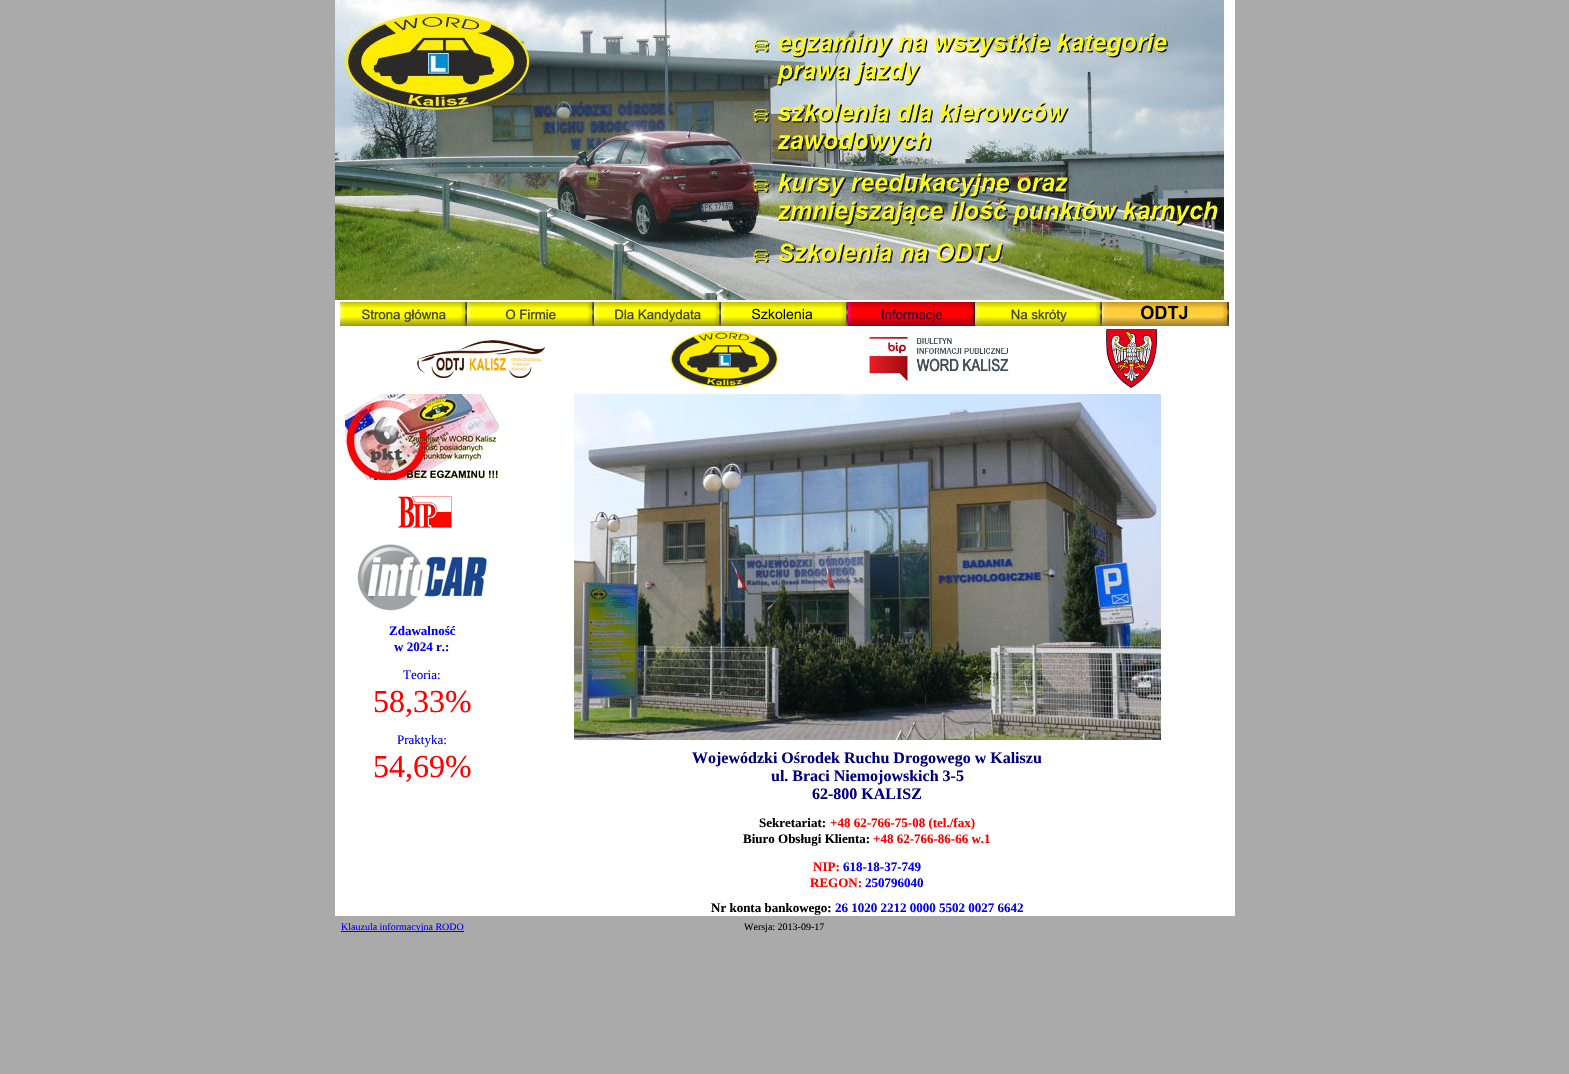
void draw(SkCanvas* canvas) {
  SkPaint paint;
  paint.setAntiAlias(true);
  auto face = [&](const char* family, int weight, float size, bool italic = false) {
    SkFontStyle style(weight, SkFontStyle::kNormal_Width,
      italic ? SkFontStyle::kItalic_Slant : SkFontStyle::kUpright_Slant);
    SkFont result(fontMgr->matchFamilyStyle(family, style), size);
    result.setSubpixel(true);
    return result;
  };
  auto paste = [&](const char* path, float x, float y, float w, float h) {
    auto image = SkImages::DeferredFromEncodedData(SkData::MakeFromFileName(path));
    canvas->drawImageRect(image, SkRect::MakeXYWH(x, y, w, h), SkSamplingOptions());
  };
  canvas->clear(0xffaaaaaa);
  paint.setColor(0xffffffff);
  canvas->drawRect(SkRect::MakeXYWH(335, 300, 900, 616), paint);
  canvas->drawRect(SkRect::MakeXYWH(1231, 0, 4, 300), paint);
  paste("img/1.png", 335, 0, 896, 300);
  paste("img/2.png", 340, 302, 127, 24);
  paste("img/3.png", 467, 302, 127, 24);
  paste("img/4.png", 594, 302, 127, 24);
  paste("img/5.png", 721, 302, 127, 24);
  paste("img/6.png", 848, 302, 127, 24);
  paste("img/7.png", 975, 302, 127, 24);
  paste("img/8.png", 1102, 302, 127, 24);
  paste("img/9.png", 417, 340, 128, 38);
  paste("img/10.png", 670, 331, 108, 57);
  paste("img/11.png", 869, 337, 140, 44);
  paste("img/12.png", 1106, 329, 51, 59);
  paste("img/13.png", 345, 394, 155, 86);
  paste("img/14.png", 398, 496, 54, 32);
  paste("img/15.png", 357, 544, 130, 67);
  paste("img/16.png", 574, 394, 587, 346);
  paint.setColor(0xff0000ff);
  canvas->drawRect(SkRect::MakeXYWH(341, 931, 123, 1), paint);
  auto f0 = face("Liberation Serif", 700, 13);
  canvas->drawString("Zdawalność", 389, 635, f0, paint);
  canvas->drawString("w 2024 r.:", 394, 651, f0, paint);
  auto f1 = face("Liberation Serif", 400, 13);
  canvas->drawString("Teoria:", 403, 679, f1, paint);
  auto f2 = face("Liberation Serif", 400, 32);
  paint.setColor(0xffff0000);
  canvas->drawString("58,33%", 373, 712, f2, paint);
  paint.setColor(0xff0000ff);
  canvas->drawString("Praktyka:", 397, 744, f1, paint);
  paint.setColor(0xffff0000);
  canvas->drawString("54,69%", 373, 777, f2, paint);
  auto f3 = face("Liberation Serif", 700, 16);
  paint.setColor(0xff000080);
  {
    const struct { const char* s; float x, y; } items[] = {
      {"Wojewódzki Ośrodek Ruchu Drogowego w Kaliszu", 692, 763},
      {"ul. Braci Niemojowskich 3-5", 771, 781},
      {"62-800 KALISZ", 812, 799},
    };
    for (auto [s, x, y] : items) {
      canvas->drawString(s, x, y, f3, paint);
    }
  }
  paint.setColor(0xff000000);
  canvas->drawString("Sekretariat:", 759, 827, f0, paint);
  paint.setColor(0xffff0000);
  canvas->drawString("+48 62-766-75-08 (tel./fax)", 830, 827, f0, paint);
  paint.setColor(0xff000000);
  canvas->drawString("Biuro Obsługi Klienta:", 743, 843, f0, paint);
  paint.setColor(0xffff0000);
  canvas->drawString("+48 62-766-86-66 w.1", 873, 843, f0, paint);
  canvas->drawString("NIP:", 813, 871, f0, paint);
  paint.setColor(0xff0000ff);
  canvas->drawString("618-18-37-749", 843, 871, f0, paint);
  paint.setColor(0xffff0000);
  canvas->drawString("REGON:", 810, 887, f0, paint);
  paint.setColor(0xff0000ff);
  canvas->drawString("250796040", 865, 887, f0, paint);
  paint.setColor(0xff000000);
  canvas->drawString("Nr konta bankowego:", 711, 912, f0, paint);
  paint.setColor(0xff0000ff);
  canvas->drawString("26 1020 2212 0000 5502 0027 6642", 835, 912, f0, paint);
  auto f4 = face("Liberation Serif", 400, 10);
  canvas->drawString("Klauzula informacyjna RODO", 341, 930, f4, paint);
  paint.setColor(0xff000000);
  canvas->drawString("Wersja: 2013-09-17", 744, 930, f4, paint);
}
